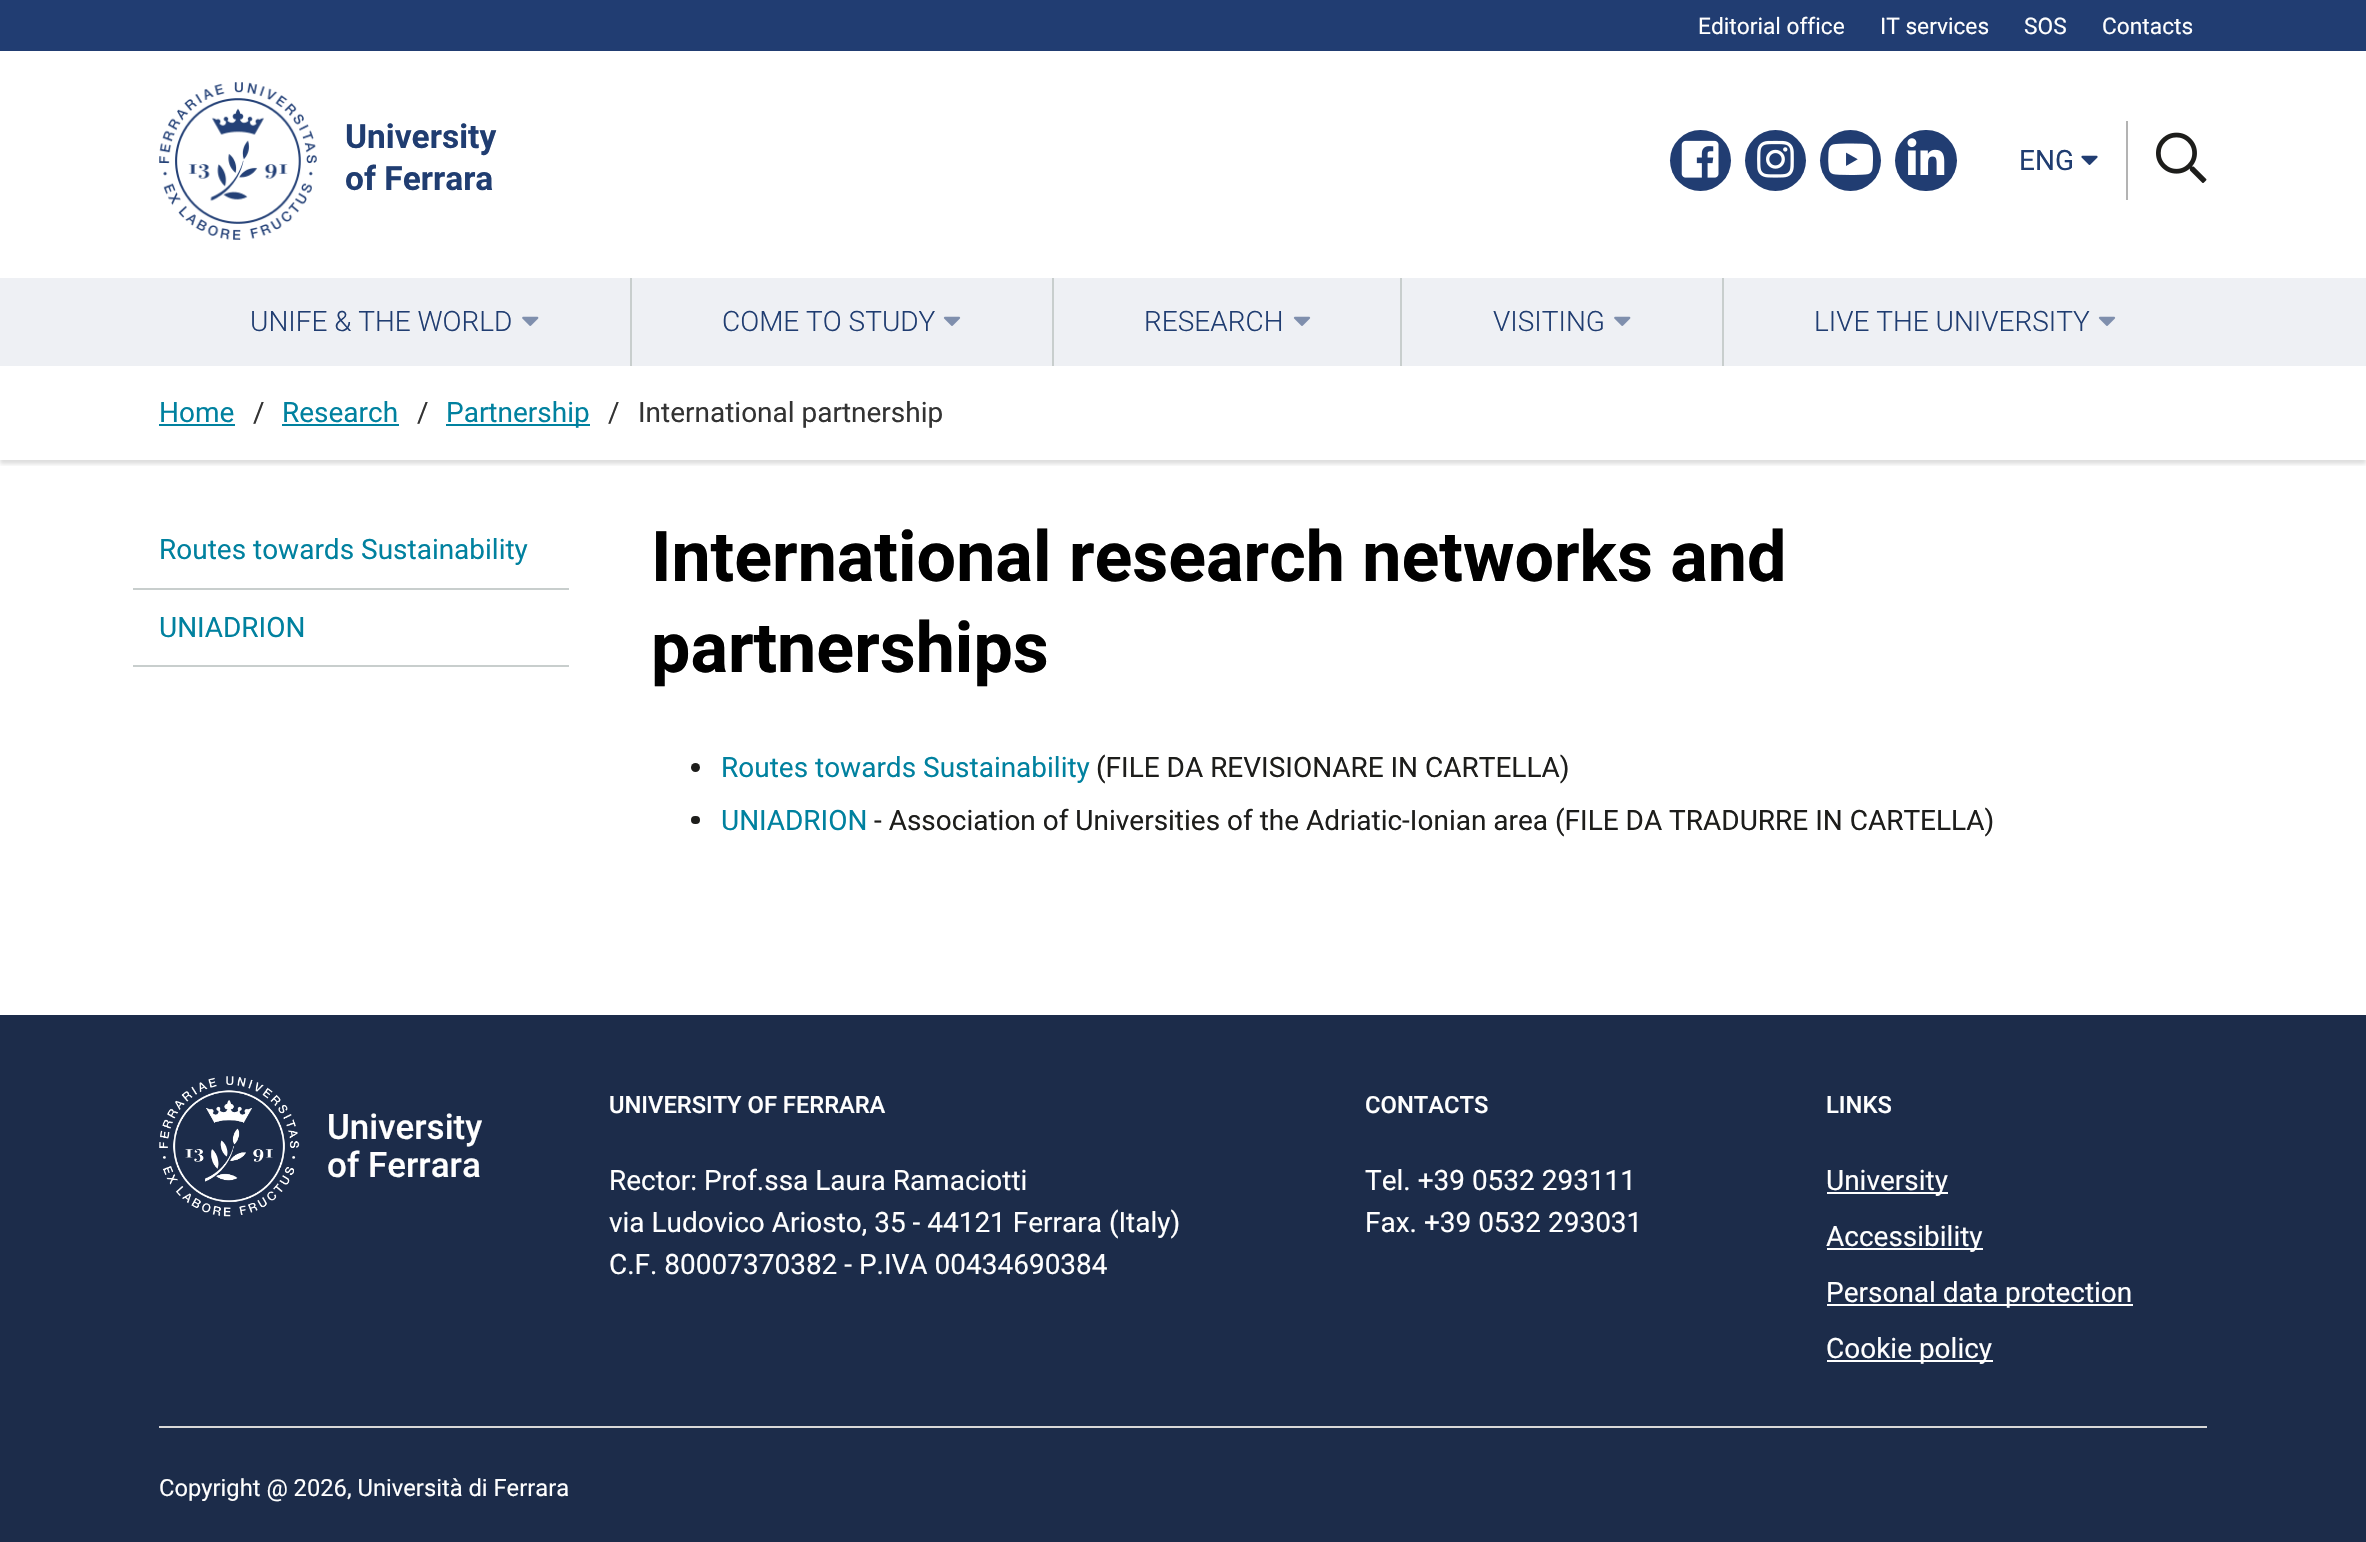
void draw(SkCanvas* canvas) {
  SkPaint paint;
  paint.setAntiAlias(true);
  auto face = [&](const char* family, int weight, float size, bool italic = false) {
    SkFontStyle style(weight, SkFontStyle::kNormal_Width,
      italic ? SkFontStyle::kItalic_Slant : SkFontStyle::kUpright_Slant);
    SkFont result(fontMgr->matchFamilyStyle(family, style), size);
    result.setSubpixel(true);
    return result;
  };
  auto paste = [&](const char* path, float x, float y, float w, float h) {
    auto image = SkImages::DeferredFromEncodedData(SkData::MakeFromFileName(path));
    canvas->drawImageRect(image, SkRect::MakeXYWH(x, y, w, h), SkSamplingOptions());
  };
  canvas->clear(0xffffffff);
  paint.setColor(0xff213d72);
  canvas->drawRect(SkRect::MakeXYWH(0, 0, 2366, 51), paint);
  paste("img/1.png", 159, 82, 158, 158);
  canvas->drawCircle(1700.5f, 160.5f, 30.5f, paint);
  paste("img/2.png", 1681, 140, 38, 38);
  canvas->drawCircle(1775.5f, 160.5f, 30.5f, paint);
  paste("img/3.png", 1757, 140, 37, 38);
  canvas->drawCircle(1850.5f, 160.5f, 30.5f, paint);
  paste("img/4.png", 1828, 143, 45, 32);
  canvas->drawRoundRect(SkRect::MakeXYWH(1895, 130, 62, 61), 30.5f, 30.5f, paint);
  paste("img/5.png", 1907, 138, 38, 37);
  paste("img/6.png", 2081, 155, 17, 10);
  paint.setColor(0xffb3b3b3);
  canvas->drawRect(SkRect::MakeXYWH(2126, 121, 2, 79), paint);
  paste("img/7.png", 2156, 132, 51, 51);
  canvas->save();
  canvas->clipRect(SkRect::MakeXYWH(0, 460, 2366, 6));
  paint.setColor(0x21000000);
  paint.setMaskFilter(SkMaskFilter::MakeBlur(kNormal_SkBlurStyle, 2));
  canvas->drawRect(SkRect::MakeXYWH(0, 369, 2366, 95), paint);
  paint.setMaskFilter(nullptr);
  canvas->restore();
  paint.setColor(0xffeef0f4);
  canvas->drawRect(SkRect::MakeXYWH(0, 278, 2366, 88), paint);
  paint.setColor(0xffc8cecd);
  canvas->drawRect(SkRect::MakeXYWH(630, 278, 2, 88), paint);
  paste("img/8.png", 522, 316, 17, 10);
  canvas->drawRect(SkRect::MakeXYWH(1052, 278, 2, 88), paint);
  paste("img/9.png", 943, 316, 18, 10);
  canvas->drawRect(SkRect::MakeXYWH(1400, 278, 2, 88), paint);
  paste("img/9.png", 1293, 316, 18, 10);
  canvas->drawRect(SkRect::MakeXYWH(1722, 278, 2, 88), paint);
  paste("img/8.png", 1614, 316, 17, 10);
  paste("img/9.png", 2098, 316, 18, 10);
  {
    const struct { float x, y, w, h; SkColor color; } items[] = {
      {159, 424, 76, 2, 0xff00819f},
      {282, 424, 117, 2, 0xff00819f},
      {446, 424, 144, 2, 0xff00819f},
      {133, 588, 436, 2, 0xffc8cecd},
      {133, 665, 436, 2, 0xffc8cecd},
    };
    for (auto [x, y, w, h, color] : items) {
      paint.setColor(color);
      canvas->drawRect(SkRect::MakeXYWH(x, y, w, h), paint);
    }
  }
  paint.setColor(0xff1d1d1b);
  canvas->drawCircle(695.5f, 767.5f, 4.5f, paint);
  canvas->drawRoundRect(SkRect::MakeXYWH(691, 816, 9, 8), 4, 4, paint);
  paint.setColor(0xff1c2c4a);
  canvas->drawRect(SkRect::MakeXYWH(0, 1015, 2366, 527), paint);
  paste("img/10.png", 159, 1076, 141, 141);
  {
    const struct { float x, y, w, h; SkColor color; } items[] = {
      {1827, 1192, 121, 2, 0xffffffff},
      {1827, 1248, 156, 2, 0xffffffff},
      {1827, 1304, 306, 2, 0xffffffff},
      {1827, 1360, 166, 2, 0xffffffff},
      {159, 1426, 2048, 2, 0xffd8d8d8},
    };
    for (auto [x, y, w, h, color] : items) {
      paint.setColor(color);
      canvas->drawRect(SkRect::MakeXYWH(x, y, w, h), paint);
    }
  }
  auto f0 = face("Roboto", 400, 22.75f);
  paint.setColor(0xffffffff);
  {
    const struct { const char* s; float x, y; } items[] = {
      {"Editorial office", 1698, 34},
      {"IT services", 1880, 34},
      {"SOS", 2024, 34},
      {"Contacts", 2102, 34},
    };
    for (auto [s, x, y] : items) {
      canvas->drawString(s, x, y, f0, paint);
    }
  }
  auto f1 = face("Roboto", 700, 33.5f);
  paint.setColor(0xff203d71);
  canvas->drawString("University", 345, 148, f1, paint);
  canvas->drawString("of Ferrara", 345, 190, f1, paint);
  auto f2 = face("Roboto", 400, 28);
  canvas->drawString("ENG", 2019, 170, f2, paint);
  auto f3 = face("Roboto", 300, 28);
  {
    const struct { const char* s; float x, y; } items[] = {
      {"UNIFE & THE WORLD", 250, 331},
      {"COME TO STUDY", 722, 331},
      {"RESEARCH", 1144, 331},
      {"VISITING", 1493, 331},
      {"LIVE THE UNIVERSITY", 1814, 331},
    };
    for (auto [s, x, y] : items) {
      canvas->drawString(s, x, y, f3, paint);
    }
  }
  paint.setColor(0xff00819f);
  canvas->drawString("Home", 159, 422, f2, paint);
  paint.setColor(0xff333333);
  canvas->drawString("/", 253, 422, f2, paint);
  paint.setColor(0xff00819f);
  canvas->drawString("Research", 282, 422, f2, paint);
  paint.setColor(0xff333333);
  canvas->drawString("/", 417, 422, f2, paint);
  paint.setColor(0xff00819f);
  canvas->drawString("Partnership", 446, 422, f2, paint);
  paint.setColor(0xff333333);
  canvas->drawString("/", 608, 422, f2, paint);
  canvas->drawString("International partnership", 638, 422, f2, paint);
  paint.setColor(0xff00819f);
  canvas->drawString("Routes towards Sustainability", 159, 559, f2, paint);
  canvas->drawString("UNIADRION", 159, 637, f2, paint);
  auto f4 = face("Roboto", 700, 70);
  paint.setColor(0xff000000);
  canvas->drawString("International research networks and", 651, 581, f4, paint);
  canvas->drawString("partnerships", 651, 672, f4, paint);
  paint.setColor(0xff00819f);
  canvas->drawString("Routes towards Sustainability", 721, 777, f2, paint);
  paint.setColor(0xff1d1d1b);
  canvas->drawString("(FILE DA REVISIONARE IN CARTELLA)", 1096, 777, f2, paint);
  paint.setColor(0xff00819f);
  canvas->drawString("UNIADRION", 721, 830, f2, paint);
  paint.setColor(0xff1d1d1b);
  canvas->drawString("- Association of Universities of the Adriatic-Ionian area (FILE DA TRADURRE IN CARTELLA)", 874, 830, f2, paint);
  auto f5 = face("Roboto", 500, 35);
  paint.setColor(0xffffffff);
  canvas->drawString("University", 327, 1139, f5, paint);
  canvas->drawString("of Ferrara", 327, 1177, f5, paint);
  auto f6 = face("Roboto", 500, 23.75f);
  canvas->drawString("UNIVERSITY OF FERRARA", 609, 1113, f6, paint);
  {
    const struct { const char* s; float x, y; } items[] = {
      {"Rector: Prof.ssa Laura Ramaciotti", 609, 1190},
      {"via Ludovico Ariosto, 35 - 44121 Ferrara (Italy)", 609, 1232},
      {"C.F. 80007370382 - P.IVA 00434690384", 609, 1274},
    };
    for (auto [s, x, y] : items) {
      canvas->drawString(s, x, y, f2, paint);
    }
  }
  canvas->drawString("CONTACTS", 1365, 1113, f6, paint);
  canvas->drawString("Tel. +39 0532 293111", 1365, 1190, f2, paint);
  canvas->drawString("Fax. +39 0532 293031", 1365, 1232, f2, paint);
  canvas->drawString("LINKS", 1826, 1113, f6, paint);
  {
    const struct { const char* s; float x, y; } items[] = {
      {"University", 1826, 1190},
      {"Accessibility", 1826, 1246},
      {"Personal data protection", 1826, 1302},
      {"Cookie policy", 1826, 1358},
    };
    for (auto [s, x, y] : items) {
      canvas->drawString(s, x, y, f2, paint);
    }
  }
  auto f7 = face("Roboto", 400, 23.75f);
  canvas->drawString("Copyright @ 2026, Università di Ferrara", 159, 1496, f7, paint);
}
